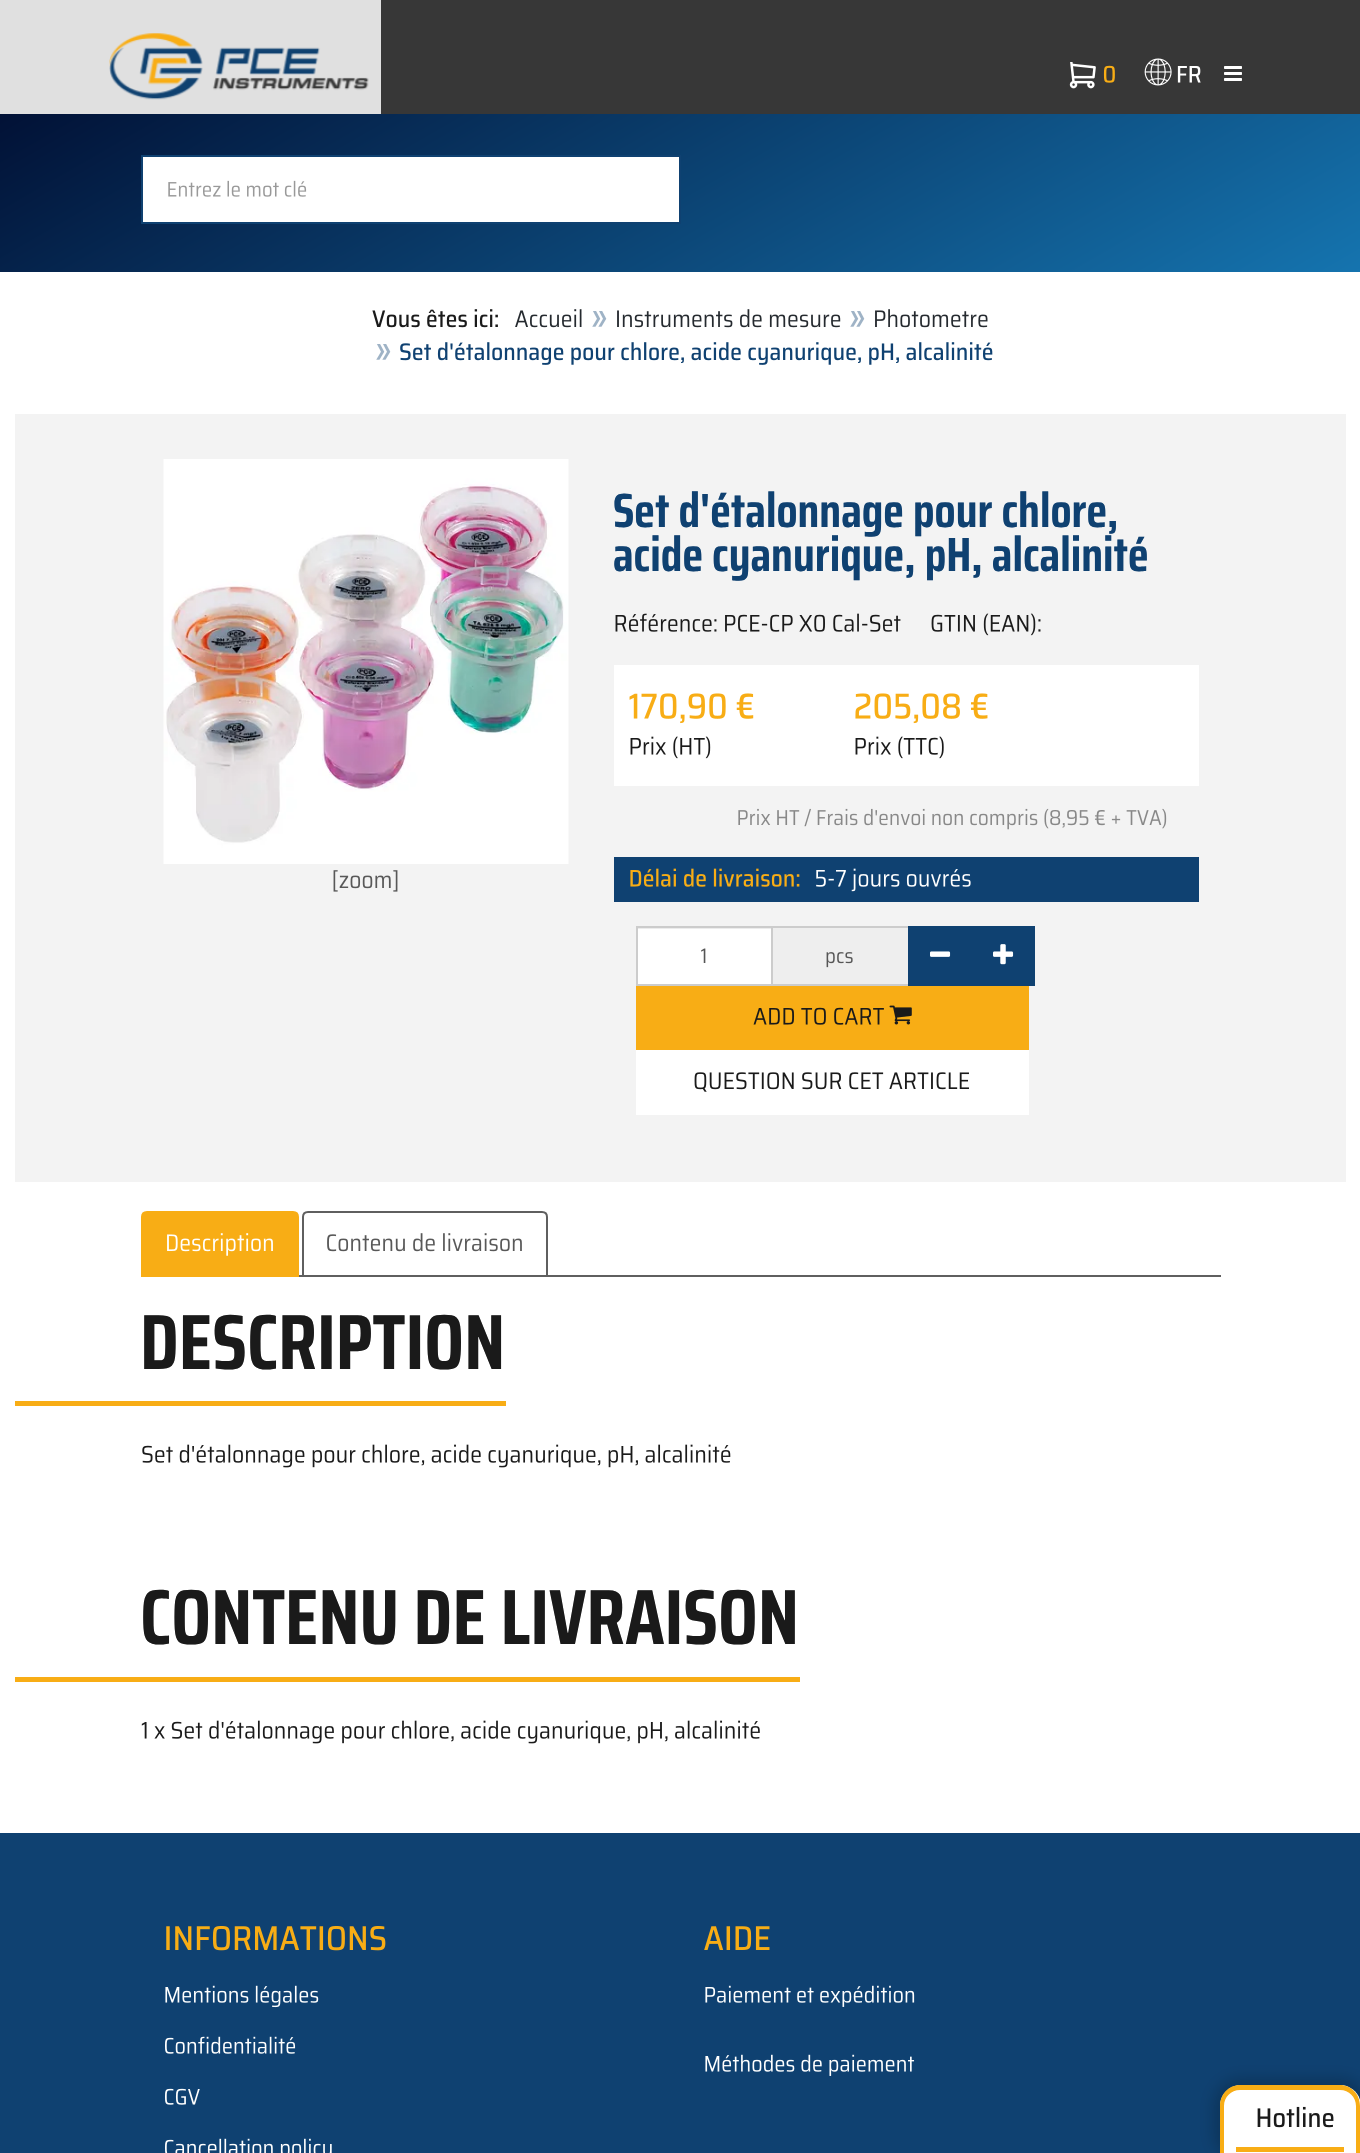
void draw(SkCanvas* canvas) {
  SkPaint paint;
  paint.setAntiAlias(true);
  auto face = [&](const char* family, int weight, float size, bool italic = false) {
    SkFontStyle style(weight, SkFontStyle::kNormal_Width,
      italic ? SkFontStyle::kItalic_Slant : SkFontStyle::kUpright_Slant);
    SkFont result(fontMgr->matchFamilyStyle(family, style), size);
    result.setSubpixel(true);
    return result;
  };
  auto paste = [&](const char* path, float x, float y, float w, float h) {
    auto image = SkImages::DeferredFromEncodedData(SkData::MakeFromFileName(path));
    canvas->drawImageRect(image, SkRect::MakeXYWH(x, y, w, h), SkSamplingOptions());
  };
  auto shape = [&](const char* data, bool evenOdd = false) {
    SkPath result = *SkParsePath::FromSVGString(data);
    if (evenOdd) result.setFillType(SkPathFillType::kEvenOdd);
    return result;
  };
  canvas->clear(0xffffffff);
  paint.setColor(0xffe0e0e0);
  canvas->drawRect(SkRect::MakeXYWH(0, 0, 381, 114), paint);
  paint.setColor(0xff373737);
  canvas->drawRect(SkRect::MakeXYWH(381, 0, 979, 114), paint);
  paste("img/1.png", 109, 33, 260, 67);
  paste("img/2.png", 1069, 62, 27, 27);
  paste("img/3.png", 1103, 65, 12, 18);
  paste("img/4.png", 1144, 58, 28, 28);
  paste("img/5.png", 1177, 66, 24, 17);
  paste("img/6.png", 1224, 66, 18, 15);
  {
    const SkColor colors[] = {0xff010f33, 0xff1574af};
    const float stops[] = {0, 1};
    const SkPoint ends[] = {{471, -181}, {889, 544}};
    paint.setShader(SkGradientShader::MakeLinear(ends, colors, stops, 2, SkTileMode::kClamp));
    paint.setAlpha(255);
  }
  canvas->drawRect(SkRect::MakeXYWH(0, 114, 1360, 158), paint);
  paint.setShader(nullptr);
  paint.setColor(0xffffffff);
  canvas->drawRect(SkRect::MakeXYWH(142, 156, 538, 67), paint);
  paint.setStroke(true);
  paint.setStrokeWidth(2);
  paint.setColor(0xff0f4171);
  canvas->drawRect(SkRect::MakeXYWH(142, 156, 538, 67), paint);
  paste("img/7.png", 168, 180, 139, 17);
  paste("img/8.png", 372, 309, 126, 19);
  paste("img/9.png", 515, 309, 67, 19);
  paste("img/10.png", 592, 311, 15, 16);
  paste("img/11.png", 617, 309, 224, 19);
  paste("img/10.png", 850, 311, 15, 16);
  paste("img/12.png", 875, 309, 113, 19);
  paste("img/10.png", 376, 344, 15, 16);
  paste("img/13.png", 400, 342, 593, 23);
  paint.setStroke(false);
  paint.setColor(0xfff3f3f3);
  canvas->drawRect(SkRect::MakeXYWH(15, 414, 1331, 768), paint);
  paste("img/14.png", 163, 459, 406, 405);
  paste("img/15.png", 333, 870, 65, 22);
  paste("img/16.png", 615, 613, 102, 19);
  paste("img/17.png", 725, 613, 176, 19);
  paste("img/18.png", 931, 613, 110, 23);
  paint.setColor(0xffffffff);
  canvas->drawRect(SkRect::MakeXYWH(614, 665, 585, 121), paint);
  paste("img/19.png", 629, 693, 125, 31);
  paste("img/20.png", 630, 736, 81, 23);
  paste("img/21.png", 855, 693, 133, 31);
  paste("img/22.png", 855, 736, 89, 23);
  paste("img/23.png", 738, 808, 429, 22);
  paint.setColor(0xff0f4171);
  canvas->drawRect(SkRect::MakeXYWH(614, 857, 585, 45), paint);
  paste("img/24.png", 630, 868, 170, 19);
  paste("img/25.png", 816, 868, 155, 24);
  paint.setColor(0xffffffff);
  canvas->drawRect(SkRect::MakeXYWH(638, 929, 133, 55), paint);
  paint.setColor(0xffececec);
  canvas->drawRect(SkRect::MakeXYWH(638, 928, 133, 1), paint);
  paint.setStroke(true);
  paint.setColor(0xffcccccc);
  canvas->drawRect(SkRect::MakeXYWH(637, 927, 135, 58), paint);
  paste("img/26.png", 701, 948, 5, 15);
  paint.setStroke(false);
  {
    const struct { float x, y, w, h; SkColor color; } items[] = {
      {773, 928, 135, 56, 0xffeeeeee},
      {773, 926, 136, 2, 0xffcccccc},
      {773, 984, 136, 2, 0xffcccccc},
    };
    for (auto [x, y, w, h, color] : items) {
      paint.setColor(color);
      canvas->drawRect(SkRect::MakeXYWH(x, y, w, h), paint);
    }
  }
  paste("img/27.png", 826, 952, 27, 16);
  paint.setColor(0xff0f4171);
  canvas->drawRect(SkRect::MakeXYWH(908, 926, 127, 60), paint);
  paste("img/28.png", 930, 951, 21, 6);
  paste("img/29.png", 993, 944, 21, 21);
  paint.setColor(0xfff8ad15);
  canvas->drawRect(SkRect::MakeXYWH(636, 986, 393, 64), paint);
  paste("img/30.png", 753, 1007, 131, 18);
  paste("img/31.png", 889, 1005, 23, 20);
  paint.setColor(0xffffffff);
  canvas->drawRect(SkRect::MakeXYWH(636, 1050, 393, 65), paint);
  paste("img/32.png", 694, 1072, 275, 20);
  paint.setColor(0xff5f5f5f);
  canvas->drawRect(SkRect::MakeXYWH(299, 1275, 922, 2), paint);
  paint.setColor(0xfff8ad15);
  canvas->drawPath(shape("M147 1212H293C296 1212 298 1214 298 1217V1276H142V1217C142 1214 144 1212 147 1212Z"), paint);
  paint.setStroke(true);
  canvas->drawPath(shape("M147 1212H293C296 1212 298 1214 298 1217V1276H142V1217C142 1214 144 1212 147 1212Z"), paint);
  paste("img/33.png", 167, 1233, 106, 23);
  paint.setStroke(false);
  paint.setColor(0xffffffff);
  canvas->drawPath(shape("M308 1212H542C545 1212 547 1214 547 1217V1276H303V1217C303 1214 305 1212 308 1212Z"), paint);
  paint.setStroke(true);
  paint.setColor(0xff5f5f5f);
  canvas->drawPath(shape("M308 1212H542C545 1212 547 1214 547 1217V1276H303V1217C303 1214 305 1212 308 1212Z"), paint);
  paste("img/34.png", 327, 1233, 195, 19);
  paint.setStroke(false);
  paint.setColor(0xfff8ad15);
  canvas->drawRect(SkRect::MakeXYWH(15, 1401, 491, 5), paint);
  paste("img/35.png", 142, 1444, 589, 24);
  canvas->drawRect(SkRect::MakeXYWH(15, 1677, 785, 5), paint);
  paste("img/36.png", 141, 1720, 619, 24);
  paint.setColor(0xff0f4171);
  canvas->drawRect(SkRect::MakeXYWH(0, 1833, 1360, 320), paint);
  paste("img/37.png", 166, 1926, 220, 25);
  paste("img/38.png", 165, 1985, 154, 23);
  paste("img/39.png", 165, 2036, 131, 18);
  paste("img/40.png", 165, 2088, 35, 17);
  paste("img/41.png", 165, 2138, 167, 15);
  paste("img/42.png", 704, 1926, 66, 24);
  paste("img/43.png", 705, 1985, 210, 22);
  paste("img/44.png", 705, 2054, 210, 22);
  paint.setColor(0x33000000);
  paint.setMaskFilter(SkMaskFilter::MakeBlur(kNormal_SkBlurStyle, 7.5f));
  canvas->drawRoundRect(SkRect::MakeXYWH(1214, 2079, 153, 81), 27, 27, paint);
  paint.setMaskFilter(nullptr);
  paint.setColor(0xffffffff);
  canvas->drawPath(shape("M1241 2085H1340C1351.5 2085 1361 2094.5 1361 2106V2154H1220V2106C1220 2094.5 1229.5 2085 1241 2085Z"), paint);
  paint.setColor(0xfff8ad15);
  canvas->drawPath(shape("M1240 2085H1340C1351 2085 1360 2094 1360 2106V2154H1220V2106C1220 2094 1229 2085 1240 2085ZM1240 2090H1340C1349 2090 1356 2097 1356 2106V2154H1224V2106C1224 2097 1231 2090 1240 2090Z", true), paint);
  canvas->drawRect(SkRect::MakeXYWH(1236, 2147, 108, 5), paint);
  paste("img/45.png", 1257, 2106, 77, 22);
  auto f0 = face("Saira Condensed", 700, 48);
  paint.setColor(0xff0f4171);
  canvas->drawString("Set d'étalonnage pour chlore,", 613, 527, f0, paint);
  canvas->drawString("acide cyanurique, pH, alcalinité", 613, 571, f0, paint);
  auto f1 = face("Saira Condensed", 700, 78);
  paint.setColor(0xff1a1a1a);
  canvas->drawString("DESCRIPTION", 140, 1369, f1, paint);
  canvas->drawString("CONTENU DE LIVRAISON", 140, 1644, f1, paint);
}
